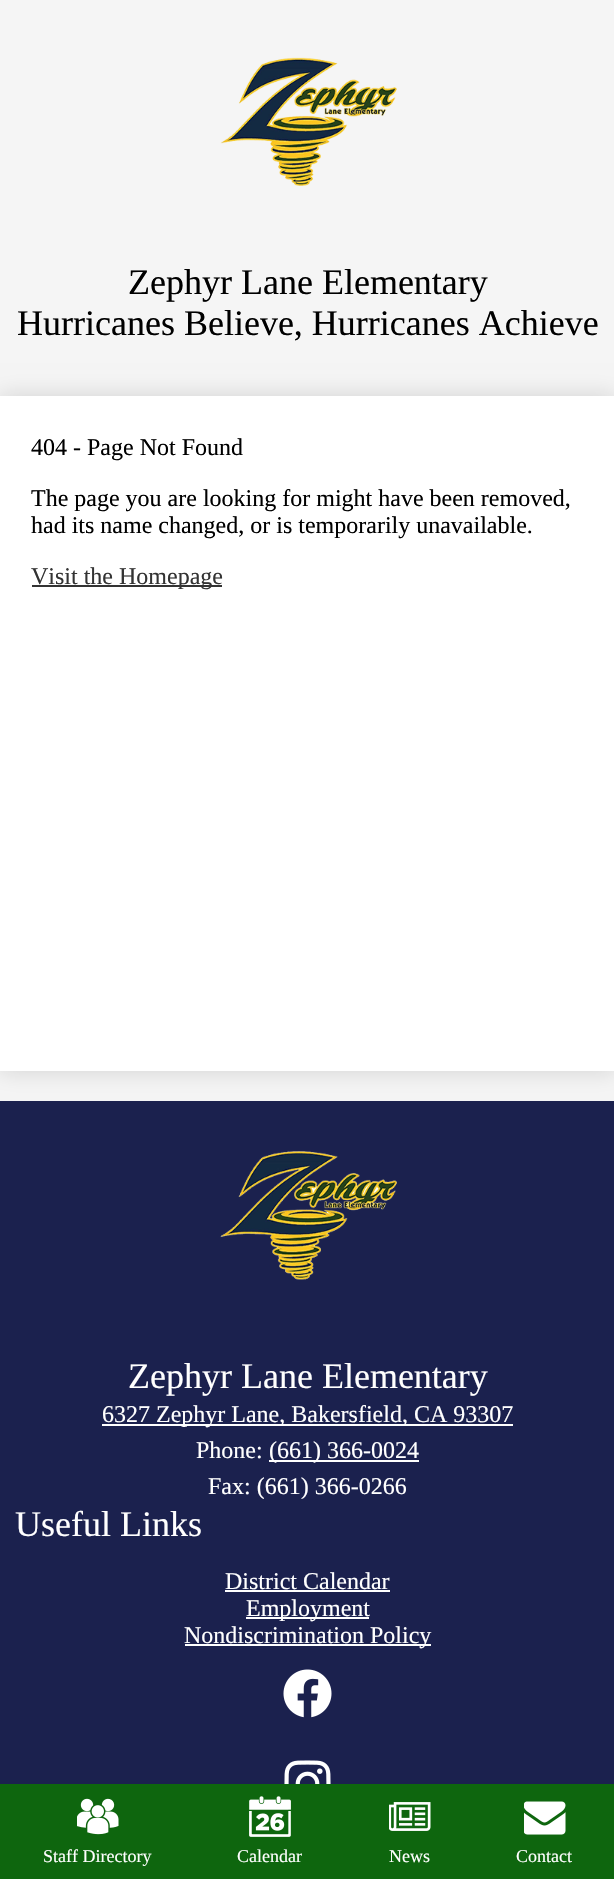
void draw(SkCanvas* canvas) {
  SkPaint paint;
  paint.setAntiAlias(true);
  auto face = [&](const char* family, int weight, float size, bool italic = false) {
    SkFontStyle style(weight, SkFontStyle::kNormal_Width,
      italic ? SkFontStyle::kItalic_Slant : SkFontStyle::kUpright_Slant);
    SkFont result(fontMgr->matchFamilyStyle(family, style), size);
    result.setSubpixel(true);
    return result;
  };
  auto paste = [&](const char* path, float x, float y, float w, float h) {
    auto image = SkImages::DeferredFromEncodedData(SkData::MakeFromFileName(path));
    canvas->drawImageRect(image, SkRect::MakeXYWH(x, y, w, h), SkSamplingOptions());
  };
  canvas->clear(0xfff5f5f5);
  paste("img/1.png", 220, 57, 177, 129);
  paint.setColor(0xff1b214e);
  canvas->drawRect(SkRect::MakeXYWH(0, 1101, 614, 683), paint);
  paint.setColor(0x26000000);
  paint.setMaskFilter(SkMaskFilter::MakeBlur(kNormal_SkBlurStyle, 11));
  canvas->drawRect(SkRect::MakeXYWH(0, 396, 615, 675), paint);
  paint.setMaskFilter(nullptr);
  paint.setColor(0xffffffff);
  canvas->drawRect(SkRect::MakeXYWH(0, 396, 614, 675), paint);
  paint.setColor(0xff333333);
  canvas->drawRect(SkRect::MakeXYWH(32, 585, 190, 2), paint);
  paste("img/2.png", 220, 1151, 177, 129);
  {
    const struct { float x, y, w, h; SkColor color; } items[] = {
      {102, 1424, 411, 2, 0xffffffff},
      {269, 1460, 150, 2, 0xffffffff},
      {225, 1590, 165, 2, 0xffffffff},
      {246, 1617, 123, 2, 0xffffffff},
      {185, 1644, 246, 2, 0xffffffff},
    };
    for (auto [x, y, w, h, color] : items) {
      paint.setColor(color);
      canvas->drawRect(SkRect::MakeXYWH(x, y, w, h), paint);
    }
  }
  paste("img/3.png", 283, 1669, 49, 49);
  paste("img/4.png", 284, 1760, 47, 24);
  paint.setColor(0xff0e660e);
  canvas->drawRect(SkRect::MakeXYWH(0, 1784, 614, 95), paint);
  paste("img/5.png", 77, 1798, 42, 37);
  paste("img/6.png", 249, 1796, 42, 41);
  paste("img/7.png", 389, 1802, 42, 29);
  paste("img/8.png", 524, 1801, 42, 34);
  auto f0 = face("Liberation Serif", 400, 36);
  paint.setColor(0xff000000);
  canvas->drawString("Zephyr Lane Elementary", 128, 294, f0, paint);
  canvas->drawString("Hurricanes Believe, Hurricanes Achieve", 17, 335, f0, paint);
  auto f1 = face("Liberation Serif", 400, 24);
  {
    const struct { const char* s; float x, y; } items[] = {
      {"404 - Page Not Found", 31, 455},
      {"The page you are looking for might have been removed,", 31, 506},
      {"had its name changed, or is temporarily unavailable.", 31, 533},
    };
    for (auto [s, x, y] : items) {
      canvas->drawString(s, x, y, f1, paint);
    }
  }
  paint.setColor(0xff333333);
  canvas->drawString("Visit the Homepage", 31, 584, f1, paint);
  paint.setColor(0xffffffff);
  canvas->drawString("Zephyr Lane Elementary", 128, 1388, f0, paint);
  {
    const struct { const char* s; float x, y; } items[] = {
      {"6327 Zephyr Lane, Bakersfield, CA 93307", 102, 1422},
      {"Phone:", 196, 1458},
      {"(661) 366-0024", 269, 1458},
      {"Fax: (661) 366-0266", 208, 1494},
    };
    for (auto [s, x, y] : items) {
      canvas->drawString(s, x, y, f1, paint);
    }
  }
  canvas->drawString("Useful Links", 15, 1536, f0, paint);
  {
    const struct { const char* s; float x, y; } items[] = {
      {"District Calendar", 225, 1589},
      {"Employment", 246, 1616},
      {"Nondiscrimination Policy", 184, 1643},
    };
    for (auto [s, x, y] : items) {
      canvas->drawString(s, x, y, f1, paint);
    }
  }
  auto f2 = face("Liberation Serif", 400, 18);
  {
    const struct { const char* s; float x, y; } items[] = {
      {"Staff Directory", 43, 1862},
      {"Calendar", 237, 1862},
      {"News", 389, 1862},
      {"Contact", 516, 1862},
    };
    for (auto [s, x, y] : items) {
      canvas->drawString(s, x, y, f2, paint);
    }
  }
}
